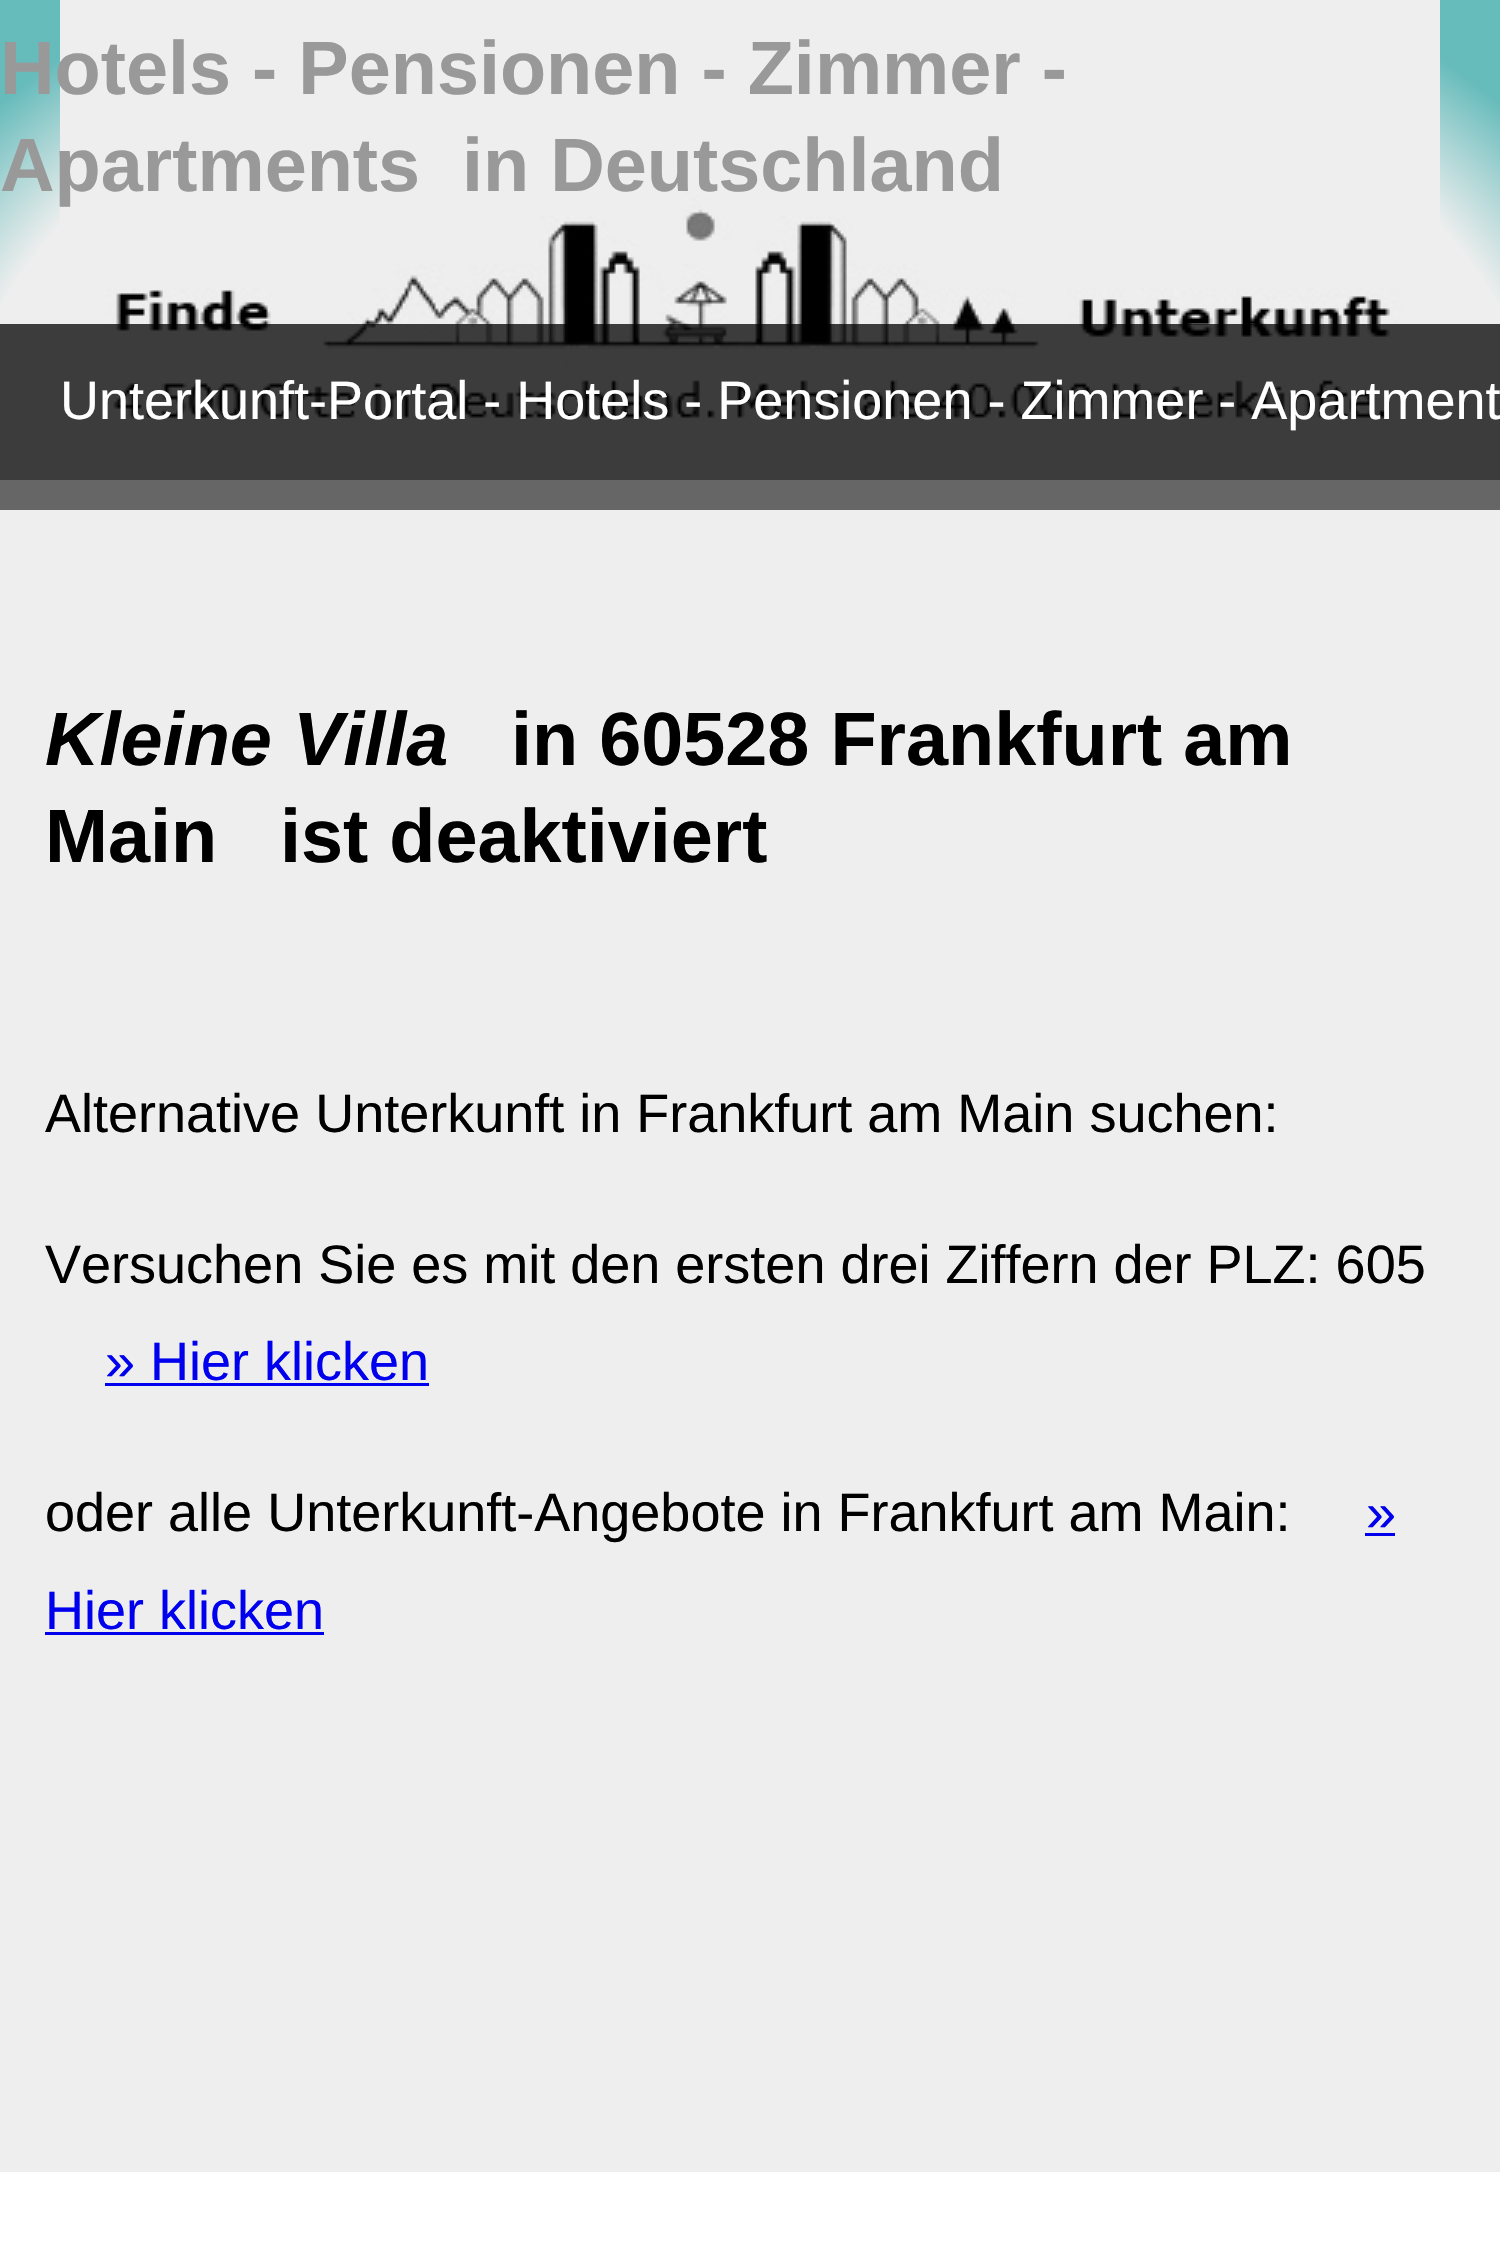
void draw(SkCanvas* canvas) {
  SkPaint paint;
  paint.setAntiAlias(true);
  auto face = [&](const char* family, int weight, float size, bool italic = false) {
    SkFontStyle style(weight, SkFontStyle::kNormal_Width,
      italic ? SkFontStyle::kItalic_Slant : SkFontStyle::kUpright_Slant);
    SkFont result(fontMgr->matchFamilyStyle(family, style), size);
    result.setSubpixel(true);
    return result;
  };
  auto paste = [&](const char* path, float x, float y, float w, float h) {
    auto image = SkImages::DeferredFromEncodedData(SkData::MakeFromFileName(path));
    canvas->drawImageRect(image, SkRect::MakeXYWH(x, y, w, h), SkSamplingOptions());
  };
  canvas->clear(0xffffffff);
  {
    const SkColor colors[] = {0xffeeeeee, 0xff66bbbb};
    const float stops[] = {0.75f, 0.9f};
    SkMatrix m = SkMatrix::Translate(750, 480).preScale(1061, 679);
    paint.setShader(SkGradientShader::MakeRadial({0, 0}, 1, colors, stops, 2, SkTileMode::kClamp, 0, &m));
    paint.setAlpha(255);
  }
  canvas->drawRect(SkRect::MakeXYWH(0, 0, 1500, 480), paint);
  paste("img/1.png", 60, 0, 1380, 418);
  paint.setShader(nullptr);
  {
    const struct { float x, y, w, h; SkColor color; } items[] = {
      {0, 324, 1500, 156, 0xbf000000},
      {0, 480, 1500, 30, 0xff666666},
      {0, 510, 1500, 1662, 0xffeeeeee},
      {105, 1383, 324, 3, 0xff0000ee},
      {1365, 1533, 30, 3, 0xff0000ee},
      {45, 1632, 279, 3, 0xff0000ee},
    };
    for (auto [x, y, w, h, color] : items) {
      paint.setColor(color);
      canvas->drawRect(SkRect::MakeXYWH(x, y, w, h), paint);
    }
  }
  auto f0 = face("Liberation Sans", 700, 75.6f);
  paint.setColor(0xff999999);
  {
    const struct { const char* s; float x, y; } items[] = {
      {"Hotels ‐ Pensionen ‐ Zimmer ‐", 0, 94},
      {"Apartments", 0, 191},
      {"in Deutschland", 462, 191},
    };
    for (auto [s, x, y] : items) {
      canvas->drawString(s, x, y, f0, paint);
    }
  }
  auto f1 = face("Liberation Sans", 400, 54);
  paint.setColor(0xffffffff);
  canvas->drawString("Unterkunft-Portal - Hotels - Pensionen - Zimmer - Apartment", 60, 419, f1, paint);
  auto f2 = face("Liberation Sans", 700, 75.6f, true);
  paint.setColor(0xff000000);
  canvas->drawString("Kleine Villa", 45, 765, f2, paint);
  {
    const struct { const char* s; float x, y; } items[] = {
      {"in 60528 Frankfurt am", 511, 765},
      {"Main", 45, 862},
      {"ist deaktiviert", 280, 862},
    };
    for (auto [s, x, y] : items) {
      canvas->drawString(s, x, y, f0, paint);
    }
  }
  canvas->drawString("Alternative Unterkunft in Frankfurt am Main suchen:", 45, 1132, f1, paint);
  canvas->drawString("Versuchen Sie es mit den ersten drei Ziffern der PLZ: 605", 45, 1283, f1, paint);
  paint.setColor(0xff0000ee);
  canvas->drawString("» Hier klicken", 105, 1380, f1, paint);
  paint.setColor(0xff000000);
  canvas->drawString("oder alle Unterkunft-Angebote in Frankfurt am Main:", 45, 1531, f1, paint);
  paint.setColor(0xff0000ee);
  canvas->drawString("»", 1366, 1531, f1, paint);
  canvas->drawString("Hier klicken", 45, 1629, f1, paint);
}
